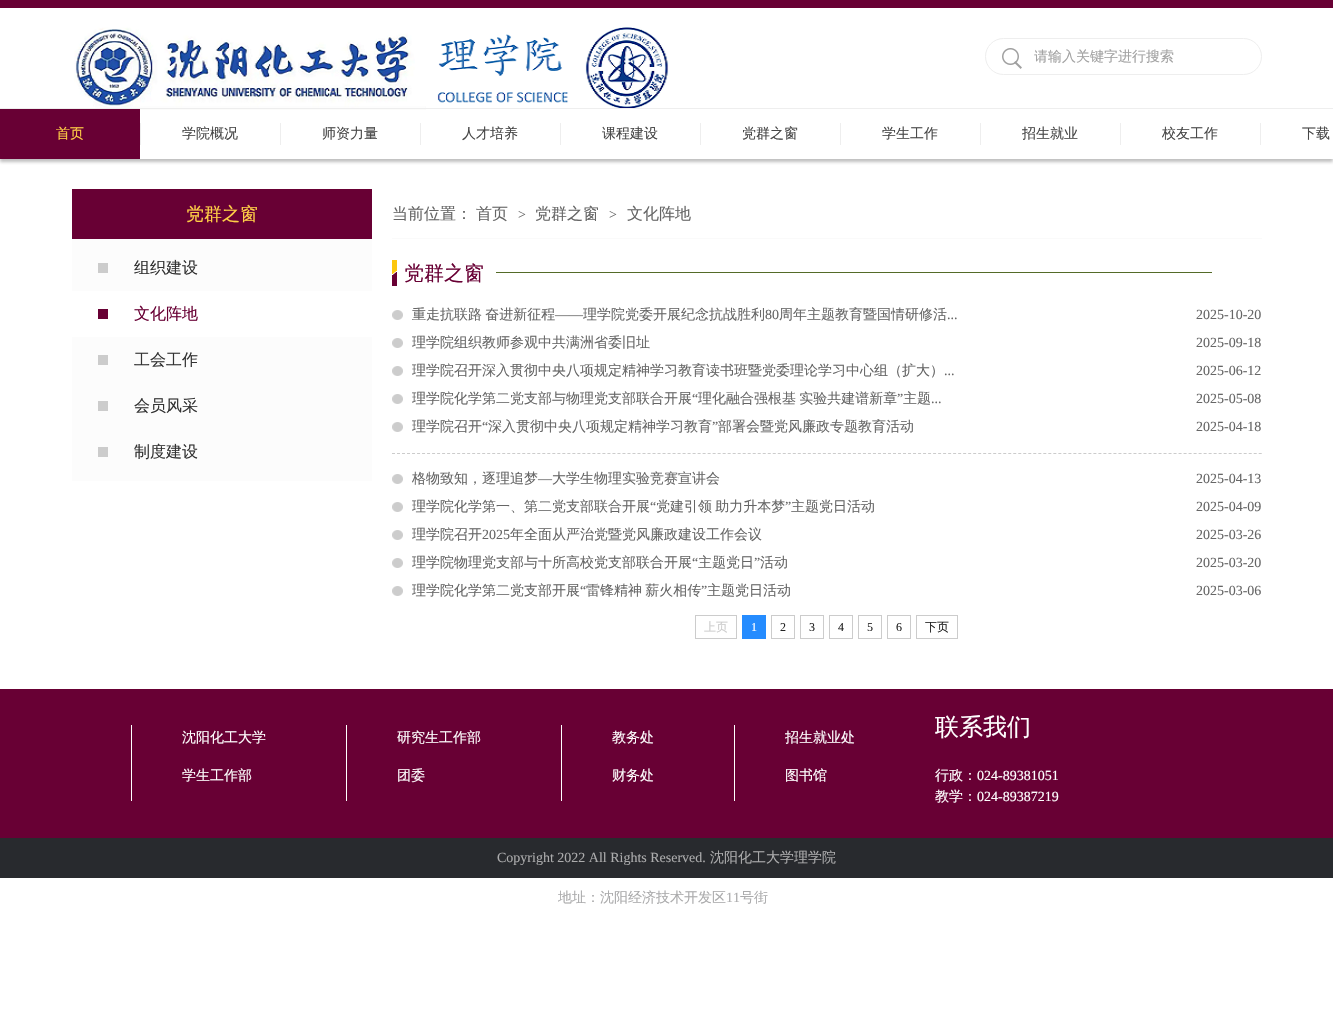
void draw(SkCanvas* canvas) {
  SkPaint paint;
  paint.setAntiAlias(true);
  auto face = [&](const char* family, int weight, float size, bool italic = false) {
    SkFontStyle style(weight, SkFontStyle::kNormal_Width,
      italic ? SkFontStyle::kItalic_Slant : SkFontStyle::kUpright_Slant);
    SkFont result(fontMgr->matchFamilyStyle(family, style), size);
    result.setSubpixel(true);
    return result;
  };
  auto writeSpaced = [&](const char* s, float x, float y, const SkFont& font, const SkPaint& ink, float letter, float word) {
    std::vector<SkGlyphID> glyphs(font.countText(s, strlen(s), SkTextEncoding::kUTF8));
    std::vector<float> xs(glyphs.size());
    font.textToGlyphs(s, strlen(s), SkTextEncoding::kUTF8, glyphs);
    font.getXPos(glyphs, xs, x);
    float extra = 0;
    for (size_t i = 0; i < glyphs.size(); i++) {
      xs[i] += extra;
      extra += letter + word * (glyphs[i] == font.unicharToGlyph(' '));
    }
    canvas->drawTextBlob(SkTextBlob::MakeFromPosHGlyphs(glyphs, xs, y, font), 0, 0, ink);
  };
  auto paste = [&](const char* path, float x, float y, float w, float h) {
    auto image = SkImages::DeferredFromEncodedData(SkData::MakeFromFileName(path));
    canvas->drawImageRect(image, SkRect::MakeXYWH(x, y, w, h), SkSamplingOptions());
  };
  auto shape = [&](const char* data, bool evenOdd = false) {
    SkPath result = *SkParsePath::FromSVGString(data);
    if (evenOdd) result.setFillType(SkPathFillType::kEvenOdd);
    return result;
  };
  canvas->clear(0xffffffff);
  paint.setColor(0xff680034);
  canvas->drawRect(SkRect::MakeXYWH(0, 0, 1333, 8), paint);
  paste("img/1.png", 74, 27, 595, 83);
  paint.setStroke(true);
  paint.setStrokeWidth(1);
  paint.setColor(0xffeeeeee);
  canvas->drawRoundRect(SkRect::MakeXYWH(985.5f, 38.5f, 276, 36), 18, 18, paint);
  paste("img/2.png", 1002, 48, 20, 21);
  canvas->save();
  canvas->clipRect(SkRect::MakeXYWH(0, 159, 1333, 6));
  paint.setStroke(false);
  paint.setColor(0xffc0c0c0);
  paint.setMaskFilter(SkMaskFilter::MakeBlur(kNormal_SkBlurStyle, 1.5f));
  canvas->drawRect(SkRect::MakeXYWH(0, 111, 1333, 51), paint);
  paint.setMaskFilter(nullptr);
  canvas->restore();
  {
    const struct { float x, y, w, h; SkColor color; } items[] = {
      {0, 108, 1333, 1, 0xffeeeeee},
      {0, 109, 140, 50, 0xff680034},
      {140, 123, 1, 22, 0xffeeeeee},
      {280, 123, 1, 22, 0xffeeeeee},
      {420, 123, 1, 22, 0xffeeeeee},
      {560, 123, 1, 22, 0xffeeeeee},
      {700, 123, 1, 22, 0xffeeeeee},
      {840, 123, 1, 22, 0xffeeeeee},
      {980, 123, 1, 22, 0xffeeeeee},
      {1120, 123, 1, 22, 0xffeeeeee},
      {1260, 123, 1, 22, 0xffeeeeee},
      {72, 189, 300, 50, 0xff680034},
      {72, 239, 300, 242, 0xfffcfcfc},
      {98, 263, 10, 10, 0xffcccccc},
      {72, 291, 300, 46, 0xffffffff},
      {98, 309, 10, 10, 0xff680034},
      {98, 355, 10, 10, 0xffcccccc},
      {98, 401, 10, 10, 0xffcccccc},
      {98, 447, 10, 10, 0xffcccccc},
      {392, 238, 870, 1, 0xfffafafa},
    };
    for (auto [x, y, w, h, color] : items) {
      paint.setColor(color);
      canvas->drawRect(SkRect::MakeXYWH(x, y, w, h), paint);
    }
  }
  paste("img/3.png", 392, 260, 5, 26);
  paint.setColor(0xff546b28);
  canvas->drawRect(SkRect::MakeXYWH(496, 272, 716, 1), paint);
  paste("img/4.png", 392, 310, 11, 10);
  paste("img/4.png", 392, 338, 11, 10);
  paste("img/4.png", 392, 366, 11, 10);
  paste("img/4.png", 392, 394, 11, 10);
  paste("img/4.png", 392, 422, 11, 10);
  paint.setStroke(true);
  paint.setColor(0xffcccccc);
  paint.setPathEffect(SkDashPathEffect::Make({{3, 2.01f}}, 0));
  canvas->drawPath(shape("M392 453.5H1262"), paint);
  paint.setPathEffect(nullptr);
  paste("img/4.png", 392, 474, 11, 10);
  paste("img/4.png", 392, 502, 11, 10);
  paste("img/4.png", 392, 530, 11, 10);
  paste("img/4.png", 392, 558, 11, 10);
  paste("img/4.png", 392, 586, 11, 10);
  canvas->drawRect(SkRect::MakeXYWH(695.5f, 615.5f, 41, 23), paint);
  paint.setStroke(false);
  paint.setColor(0xff258cff);
  canvas->drawRect(SkRect::MakeXYWH(742, 615, 24, 24), paint);
  paint.setStroke(true);
  paint.setColor(0xffcccccc);
  canvas->drawRect(SkRect::MakeXYWH(771.5f, 615.5f, 23, 23), paint);
  canvas->drawRect(SkRect::MakeXYWH(800.5f, 615.5f, 23, 23), paint);
  canvas->drawRect(SkRect::MakeXYWH(829.5f, 615.5f, 23, 23), paint);
  canvas->drawRect(SkRect::MakeXYWH(858.5f, 615.5f, 23, 23), paint);
  canvas->drawRect(SkRect::MakeXYWH(887.5f, 615.5f, 23, 23), paint);
  canvas->drawRect(SkRect::MakeXYWH(916.5f, 615.5f, 41, 23), paint);
  paint.setStroke(false);
  {
    const struct { float x, y, w, h; SkColor color; } items[] = {
      {0, 689, 1333, 149, 0xff680034},
      {131, 725, 1, 76, 0xffffffff},
      {346, 725, 1, 76, 0xffffffff},
      {561, 725, 1, 76, 0xffffffff},
      {734, 725, 1, 76, 0xffffffff},
      {0, 838, 1333, 40, 0xff282a2e},
    };
    for (auto [x, y, w, h, color] : items) {
      paint.setColor(color);
      canvas->drawRect(SkRect::MakeXYWH(x, y, w, h), paint);
    }
  }
  canvas->save();
  canvas->clipPath(shape("M1049.5 41H1238.5C1247 41 1254 48 1254 56.5C1254 65 1247 72 1238.5 72H1049.5C1041 72 1034 65 1034 56.5C1034 48 1041 41 1049.5 41Z"), true);
  auto f0 = face("WenQuanYi Zen Hei", 500, 14);
  paint.setColor(0xffa2a2a2);
  canvas->drawString("请输入关键字进行搜索", 1034, 61, f0, paint);
  canvas->restore();
  paint.setColor(0xffffcf46);
  canvas->drawString("首页", 56, 138, f0, paint);
  paint.setColor(0xff464646);
  {
    const struct { const char* s; float x, y; } items[] = {
      {"学院概况", 182, 138},
      {"师资力量", 322, 138},
      {"人才培养", 462, 138},
      {"课程建设", 602, 138},
      {"党群之窗", 742, 138},
      {"学生工作", 882, 138},
      {"招生就业", 1022, 138},
      {"校友工作", 1162, 138},
      {"下载", 1302, 138},
    };
    for (auto [s, x, y] : items) {
      canvas->drawString(s, x, y, f0, paint);
    }
  }
  auto f1 = face("WenQuanYi Zen Hei", 500, 18);
  paint.setColor(0xffffcf46);
  canvas->drawString("党群之窗", 186, 220, f1, paint);
  auto f2 = face("WenQuanYi Zen Hei", 500, 16);
  paint.setColor(0xff333333);
  canvas->drawString("组织建设", 134, 273, f2, paint);
  paint.setColor(0xff680034);
  canvas->drawString("文化阵地", 134, 319, f2, paint);
  paint.setColor(0xff333333);
  {
    const struct { const char* s; float x, y; } items[] = {
      {"工会工作", 134, 365},
      {"会员风采", 134, 411},
      {"制度建设", 134, 457},
    };
    for (auto [s, x, y] : items) {
      canvas->drawString(s, x, y, f2, paint);
    }
  }
  paint.setColor(0xff666666);
  canvas->drawString("当前位置：", 392, 219, f2, paint);
  canvas->drawString("首页", 476, 219, f2, paint);
  auto f3 = face("Liberation Serif", 400, 14);
  canvas->drawString(">", 518, 219, f3, paint);
  canvas->drawString("党群之窗", 535, 219, f2, paint);
  canvas->drawString(">", 609, 219, f3, paint);
  canvas->drawString("文化阵地", 627, 219, f2, paint);
  auto f4 = face("WenQuanYi Zen Hei", 500, 20);
  paint.setColor(0xff680034);
  canvas->drawString("党群之窗", 404, 280, f4, paint);
  paint.setColor(0xff666666);
  writeSpaced("重走抗联路 奋进新征程", 412, 319, f0, paint, 0, -1);
  canvas->drawString("——", 555, 319, f3, paint);
  canvas->drawString("理学院党委开展纪念抗战胜利", 583, 319, f0, paint);
  canvas->drawString("80", 765, 319, f3, paint);
  canvas->drawString("周年主题教育暨国情研修活", 779, 319, f0, paint);
  canvas->drawString("2025-10-20", 1196, 319, f3, paint);
  canvas->drawString("...", 947, 319, f3, paint);
  canvas->drawString("理学院组织教师参观中共满洲省委旧址", 412, 347, f0, paint);
  canvas->drawString("2025-09-18", 1196, 347, f3, paint);
  canvas->drawString("理学院召开深入贯彻中央八项规定精神学习教育读书班暨党委理论学习中心组（扩大）", 412, 375, f0, paint);
  canvas->drawString("...", 944, 375, f3, paint);
  canvas->drawString("2025-06-12", 1196, 375, f3, paint);
  canvas->drawString("理学院化学第二党支部与物理党支部联合开展", 412, 403, f0, paint);
  canvas->drawString("“", 692, 403, f3, paint);
  writeSpaced("理化融合强根基 实验共建谱新章", 698, 403, f0, paint, 0, -1);
  canvas->drawString("”", 897, 403, f3, paint);
  canvas->drawString("主题", 903, 403, f0, paint);
  canvas->drawString("...", 931, 403, f3, paint);
  canvas->drawString("2025-05-08", 1196, 403, f3, paint);
  canvas->drawString("理学院召开", 412, 431, f0, paint);
  canvas->drawString("“", 482, 431, f3, paint);
  canvas->drawString("深入贯彻中央八项规定精神学习教育", 488, 431, f0, paint);
  canvas->drawString("”", 712, 431, f3, paint);
  canvas->drawString("部署会暨党风廉政专题教育活动", 718, 431, f0, paint);
  canvas->drawString("2025-04-18", 1196, 431, f3, paint);
  canvas->drawString("格物致知，逐理追梦", 412, 483, f0, paint);
  canvas->drawString("—", 538, 483, f3, paint);
  canvas->drawString("大学生物理实验竞赛宣讲会", 552, 483, f0, paint);
  canvas->drawString("2025-04-13", 1196, 483, f3, paint);
  canvas->drawString("理学院化学第一、第二党支部联合开展", 412, 511, f0, paint);
  canvas->drawString("“", 650, 511, f3, paint);
  writeSpaced("党建引领 助力升本梦", 656, 511, f0, paint, 0, -1);
  canvas->drawString("”", 785, 511, f3, paint);
  canvas->drawString("主题党日活动", 791, 511, f0, paint);
  canvas->drawString("2025-04-09", 1196, 511, f3, paint);
  canvas->drawString("理学院召开", 412, 539, f0, paint);
  canvas->drawString("2025", 482, 539, f3, paint);
  canvas->drawString("年全面从严治党暨党风廉政建设工作会议", 510, 539, f0, paint);
  canvas->drawString("2025-03-26", 1196, 539, f3, paint);
  canvas->drawString("理学院物理党支部与十所高校党支部联合开展", 412, 567, f0, paint);
  canvas->drawString("“", 692, 567, f3, paint);
  canvas->drawString("主题党日", 698, 567, f0, paint);
  canvas->drawString("”", 754, 567, f3, paint);
  canvas->drawString("活动", 760, 567, f0, paint);
  canvas->drawString("2025-03-20", 1196, 567, f3, paint);
  canvas->drawString("理学院化学第二党支部开展", 412, 595, f0, paint);
  canvas->drawString("“", 580, 595, f3, paint);
  writeSpaced("雷锋精神 薪火相传", 586, 595, f0, paint, 0, -1);
  canvas->drawString("”", 701, 595, f3, paint);
  canvas->drawString("主题党日活动", 707, 595, f0, paint);
  canvas->drawString("2025-03-06", 1196, 595, f3, paint);
  auto f5 = face("WenQuanYi Zen Hei", 500, 12);
  paint.setColor(0xffcccccc);
  canvas->drawString("上页", 704, 631, f5, paint);
  auto f6 = face("Liberation Serif", 400, 12);
  paint.setColor(0xffffffff);
  canvas->drawString("1", 751, 631, f6, paint);
  paint.setColor(0xff222222);
  {
    const struct { const char* s; float x, y; } items[] = {
      {"2", 780, 631},
      {"3", 809, 631},
      {"4", 838, 631},
      {"5", 867, 631},
      {"6", 896, 631},
    };
    for (auto [s, x, y] : items) {
      canvas->drawString(s, x, y, f6, paint);
    }
  }
  canvas->drawString("下页", 925, 631, f5, paint);
  paint.setColor(0xffffffff);
  {
    const struct { const char* s; float x, y; } items[] = {
      {"沈阳化工大学", 182, 742},
      {"学生工作部", 182, 780},
      {"研究生工作部", 397, 742},
      {"团委", 397, 780},
      {"教务处", 612, 742},
      {"财务处", 612, 780},
      {"招生就业处", 785, 742},
      {"图书馆", 785, 780},
    };
    for (auto [s, x, y] : items) {
      canvas->drawString(s, x, y, f0, paint);
    }
  }
  auto f7 = face("WenQuanYi Zen Hei", 500, 24);
  canvas->drawString("联系我们", 935, 735, f7, paint);
  canvas->drawString("行政：", 935, 780, f0, paint);
  canvas->drawString("024-89381051", 977, 780, f3, paint);
  canvas->drawString("教学：", 935, 801, f0, paint);
  canvas->drawString("024-89387219", 977, 801, f3, paint);
  paint.setColor(0xffababac);
  canvas->drawString("Copyright 2022 All Rights Reserved.", 497, 862, f3, paint);
  canvas->drawString("沈阳化工大学理学院", 710, 862, f0, paint);
  canvas->drawString("地址：沈阳经济技术开发区", 558, 902, f0, paint);
  canvas->drawString("11", 726, 902, f3, paint);
  canvas->drawString("号街", 740, 902, f0, paint);
}
